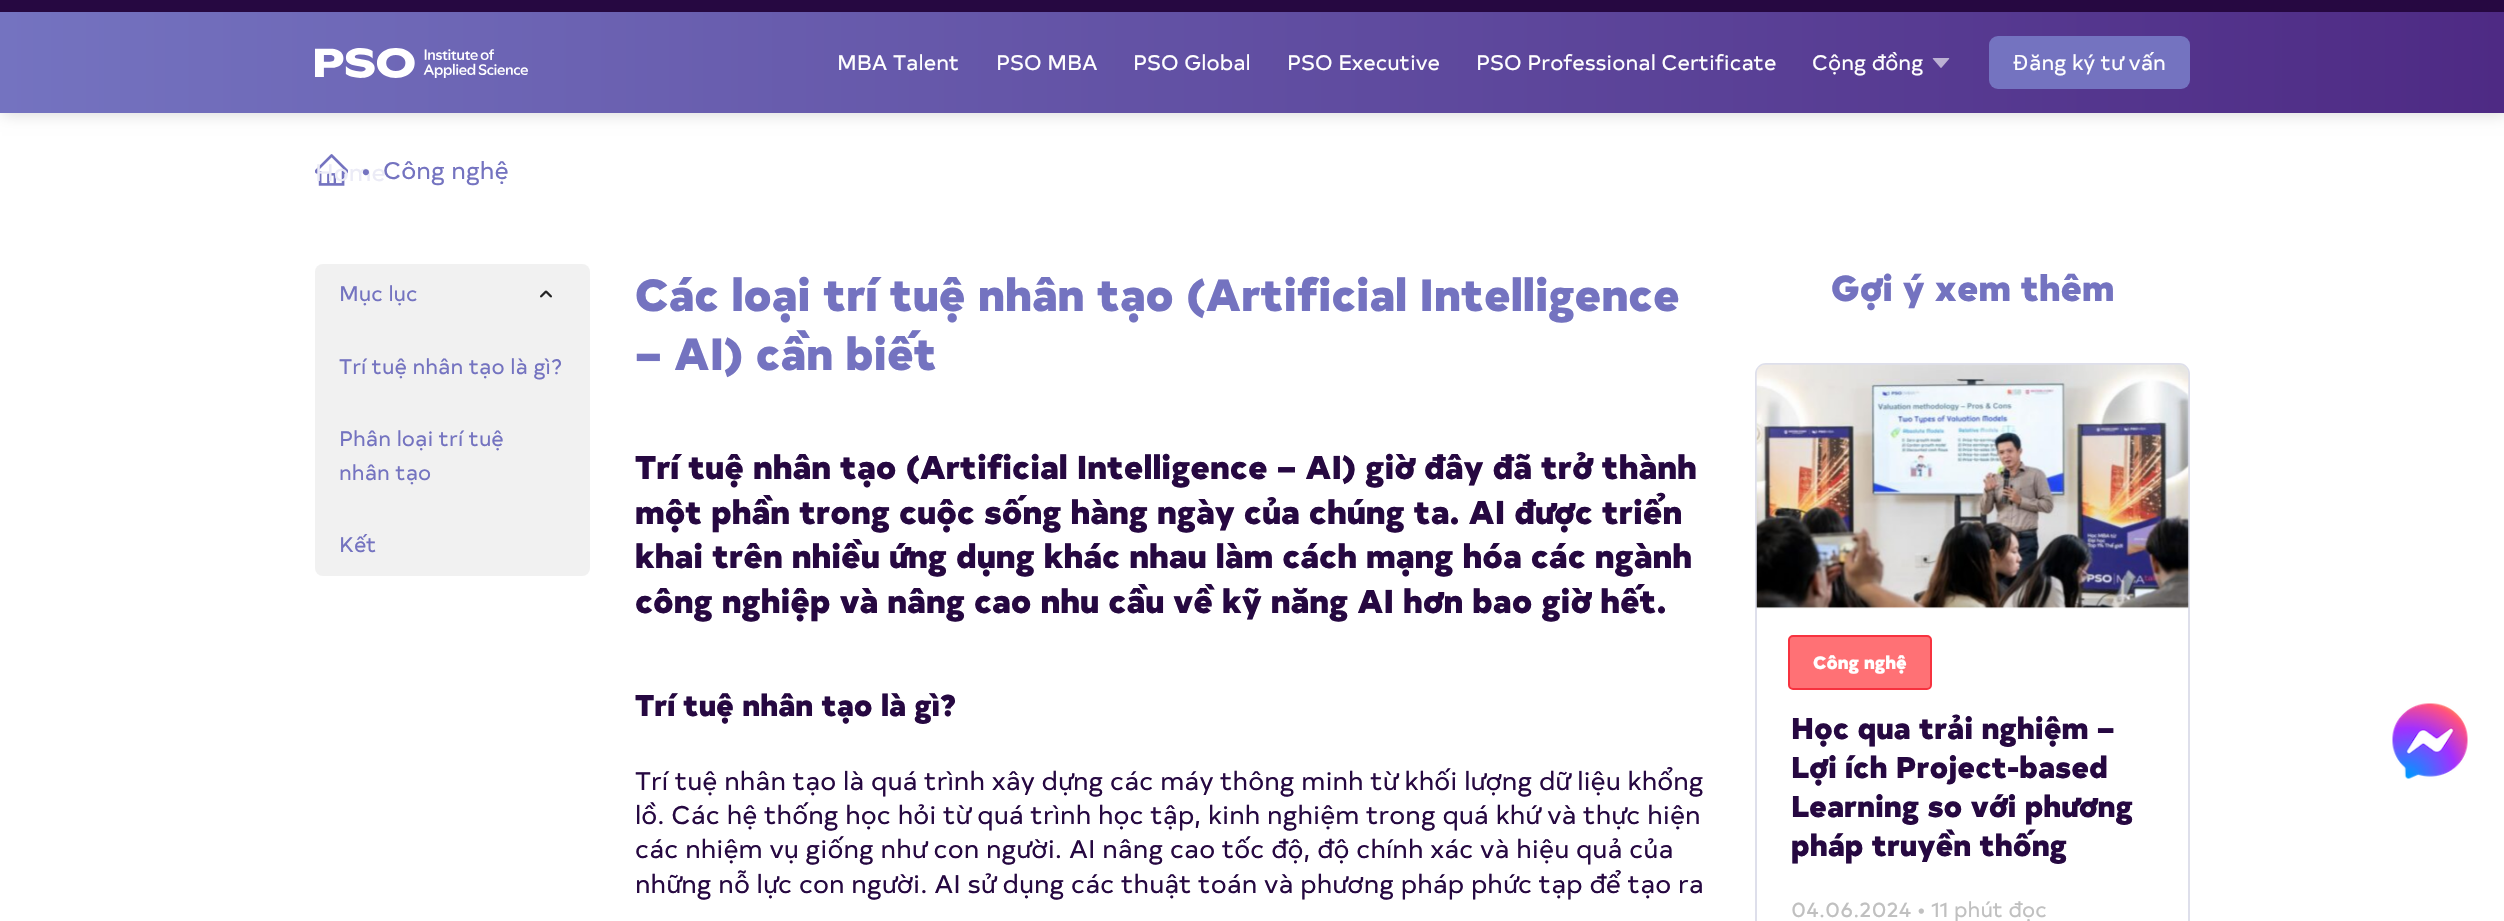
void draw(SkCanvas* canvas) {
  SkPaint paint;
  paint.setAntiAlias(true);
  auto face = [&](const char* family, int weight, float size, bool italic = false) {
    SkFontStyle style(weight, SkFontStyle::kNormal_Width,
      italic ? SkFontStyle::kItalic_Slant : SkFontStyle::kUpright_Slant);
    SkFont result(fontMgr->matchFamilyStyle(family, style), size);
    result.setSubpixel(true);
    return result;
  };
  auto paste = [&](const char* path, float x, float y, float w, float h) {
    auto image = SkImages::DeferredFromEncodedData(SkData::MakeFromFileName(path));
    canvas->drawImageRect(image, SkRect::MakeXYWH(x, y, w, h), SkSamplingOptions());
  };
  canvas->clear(0xffffffff);
  paint.setColor(0x26000000);
  paint.setMaskFilter(SkMaskFilter::MakeBlur(kNormal_SkBlurStyle, 7.5f));
  canvas->drawRect(SkRect::MakeXYWH(2, -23, 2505, 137), paint);
  paint.setMaskFilter(nullptr);
  paint.setColor(0xff260841);
  canvas->drawRect(SkRect::MakeXYWH(0, 0, 2504, 12), paint);
  {
    const SkColor colors[] = {0xff7473c0, 0xff4e2a84};
    const float stops[] = {0, 1};
    const SkPoint ends[] = {{0, 29}, {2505, 29}};
    paint.setShader(SkGradientShader::MakeLinear(ends, colors, stops, 2, SkTileMode::kClamp));
    paint.setAlpha(255);
  }
  canvas->drawRect(SkRect::MakeXYWH(0, 12, 2504, 101), paint);
  paste("img/1.png", 315, 48, 213, 30);
  paste("img/2.png", 1932, 58, 18, 10);
  paint.setShader(nullptr);
  paint.setColor(0xff7473c0);
  canvas->drawRoundRect(SkRect::MakeXYWH(1989, 36, 201, 53), 9, 9, paint);
  paste("img/3.png", 315, 154, 33, 32);
  paint.setColor(0xfff1f1f1);
  canvas->drawRoundRect(SkRect::MakeXYWH(315, 264, 275, 312), 8, 8, paint);
  paste("img/4.png", 540, 290, 12, 8);
  paint.setStroke(true);
  paint.setStrokeWidth(2);
  paint.setColor(0xffdedfeb);
  canvas->drawRoundRect(SkRect::MakeXYWH(1756, 364, 433, 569), 10, 10, paint);
  paste("img/5.png", 1756, 364, 433, 245);
  paint.setStroke(false);
  paint.setColor(0xffff7175);
  canvas->drawRoundRect(SkRect::MakeXYWH(1789, 636, 142, 53), 4, 4, paint);
  paint.setStroke(true);
  paint.setColor(0xfff7323f);
  canvas->drawRoundRect(SkRect::MakeXYWH(1789, 636, 142, 53), 4, 4, paint);
  paste("img/6.png", 2392, 703, 76, 76);
  auto f0 = face("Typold", 400, 21);
  paint.setStroke(false);
  paint.setColor(0xffffffff);
  {
    const struct { const char* s; float x, y; } items[] = {
      {"MBA Talent", 837, 70},
      {"PSO MBA", 996, 70},
      {"PSO Global", 1133, 70},
      {"PSO Executive", 1287, 70},
      {"PSO Professional Certificate", 1476, 70},
      {"Cộng đồng", 1812, 70},
    };
    for (auto [s, x, y] : items) {
      canvas->drawString(s, x, y, f0, paint);
    }
  }
  auto f1 = face("Noto Sans", 400, 21);
  canvas->drawString("Đ", 2013, 70, f1, paint);
  canvas->drawString("ăng ký tư vấn", 2029, 70, f0, paint);
  auto f2 = face("Typold", 400, 24);
  paint.setColor(0xffebebf6);
  canvas->drawString("Home", 315, 181, f2, paint);
  paint.setColor(0xff7473c0);
  canvas->drawString("Công nghệ", 383, 179, f2, paint);
  canvas->drawString("•", 361, 179, f2, paint);
  {
    const struct { const char* s; float x, y; } items[] = {
      {"Mục lục", 339, 301},
      {"Trí tuệ nhân tạo là gì?", 339, 374},
      {"Phân loại trí tuệ", 339, 446},
      {"nhân tạo", 339, 480},
      {"Kết", 339, 552},
    };
    for (auto [s, x, y] : items) {
      canvas->drawString(s, x, y, f0, paint);
    }
  }
  auto f3 = face("Typold", 900, 45);
  canvas->drawString("Các loại trí tuệ nhân tạo (Artificial Intelligence", 635, 311, f3, paint);
  canvas->drawString("– AI) cần biết", 635, 370, f3, paint);
  auto f4 = face("Typold", 900, 33);
  paint.setColor(0xff260841);
  {
    const struct { const char* s; float x, y; } items[] = {
      {"Trí tuệ nhân tạo (Artificial Intelligence – AI) giờ đây đã trở thành", 635, 479},
      {"một phần trong cuộc sống hàng ngày của chúng ta. AI được triển", 635, 524},
      {"khai trên nhiều ứng dụng khác nhau làm cách mạng hóa các ngành", 635, 568},
      {"công nghiệp và nâng cao nhu cầu về kỹ năng AI hơn bao giờ hết.", 635, 613},
    };
    for (auto [s, x, y] : items) {
      canvas->drawString(s, x, y, f4, paint);
    }
  }
  auto f5 = face("Typold", 900, 30);
  canvas->drawString("Trí tuệ nhân tạo là gì?", 635, 716, f5, paint);
  auto f6 = face("Typold", 400, 25.5f);
  {
    const struct { const char* s; float x, y; } items[] = {
      {"Trí tuệ nhân tạo là quá trình xây dựng các máy thông minh từ khối lượng dữ liệu khổng", 635, 790},
      {"lồ. Các hệ thống học hỏi từ quá trình học tập, kinh nghiệm trong quá khứ và thực hiện", 635, 824},
      {"các nhiệm vụ giống như con người. AI nâng cao tốc độ, độ chính xác và hiệu quả của", 635, 858},
      {"những nỗ lực con người. AI sử dụng các thuật toán và phương pháp phức tạp để tạo ra", 635, 893},
    };
    for (auto [s, x, y] : items) {
      canvas->drawString(s, x, y, f6, paint);
    }
  }
  auto f7 = face("Typold", 900, 36);
  paint.setColor(0xff7473c0);
  canvas->drawString("Gợi ý xem thêm", 1831, 301, f7, paint);
  auto f8 = face("Typold", 900, 18);
  paint.setColor(0xffffffff);
  canvas->drawString("Công nghệ", 1813, 669, f8, paint);
  paint.setColor(0xff260841);
  {
    const struct { const char* s; float x, y; } items[] = {
      {"Học qua trải nghiệm –", 1791, 739},
      {"Lợi ích Project-based", 1791, 778},
      {"Learning so với phương", 1791, 817},
      {"pháp truyền thống", 1791, 856},
    };
    for (auto [s, x, y] : items) {
      canvas->drawString(s, x, y, f5, paint);
    }
  }
  paint.setColor(0xffc0c0c0);
  canvas->drawString("04.06.2024 • 11 phút đọc", 1791, 917, f0, paint);
}
